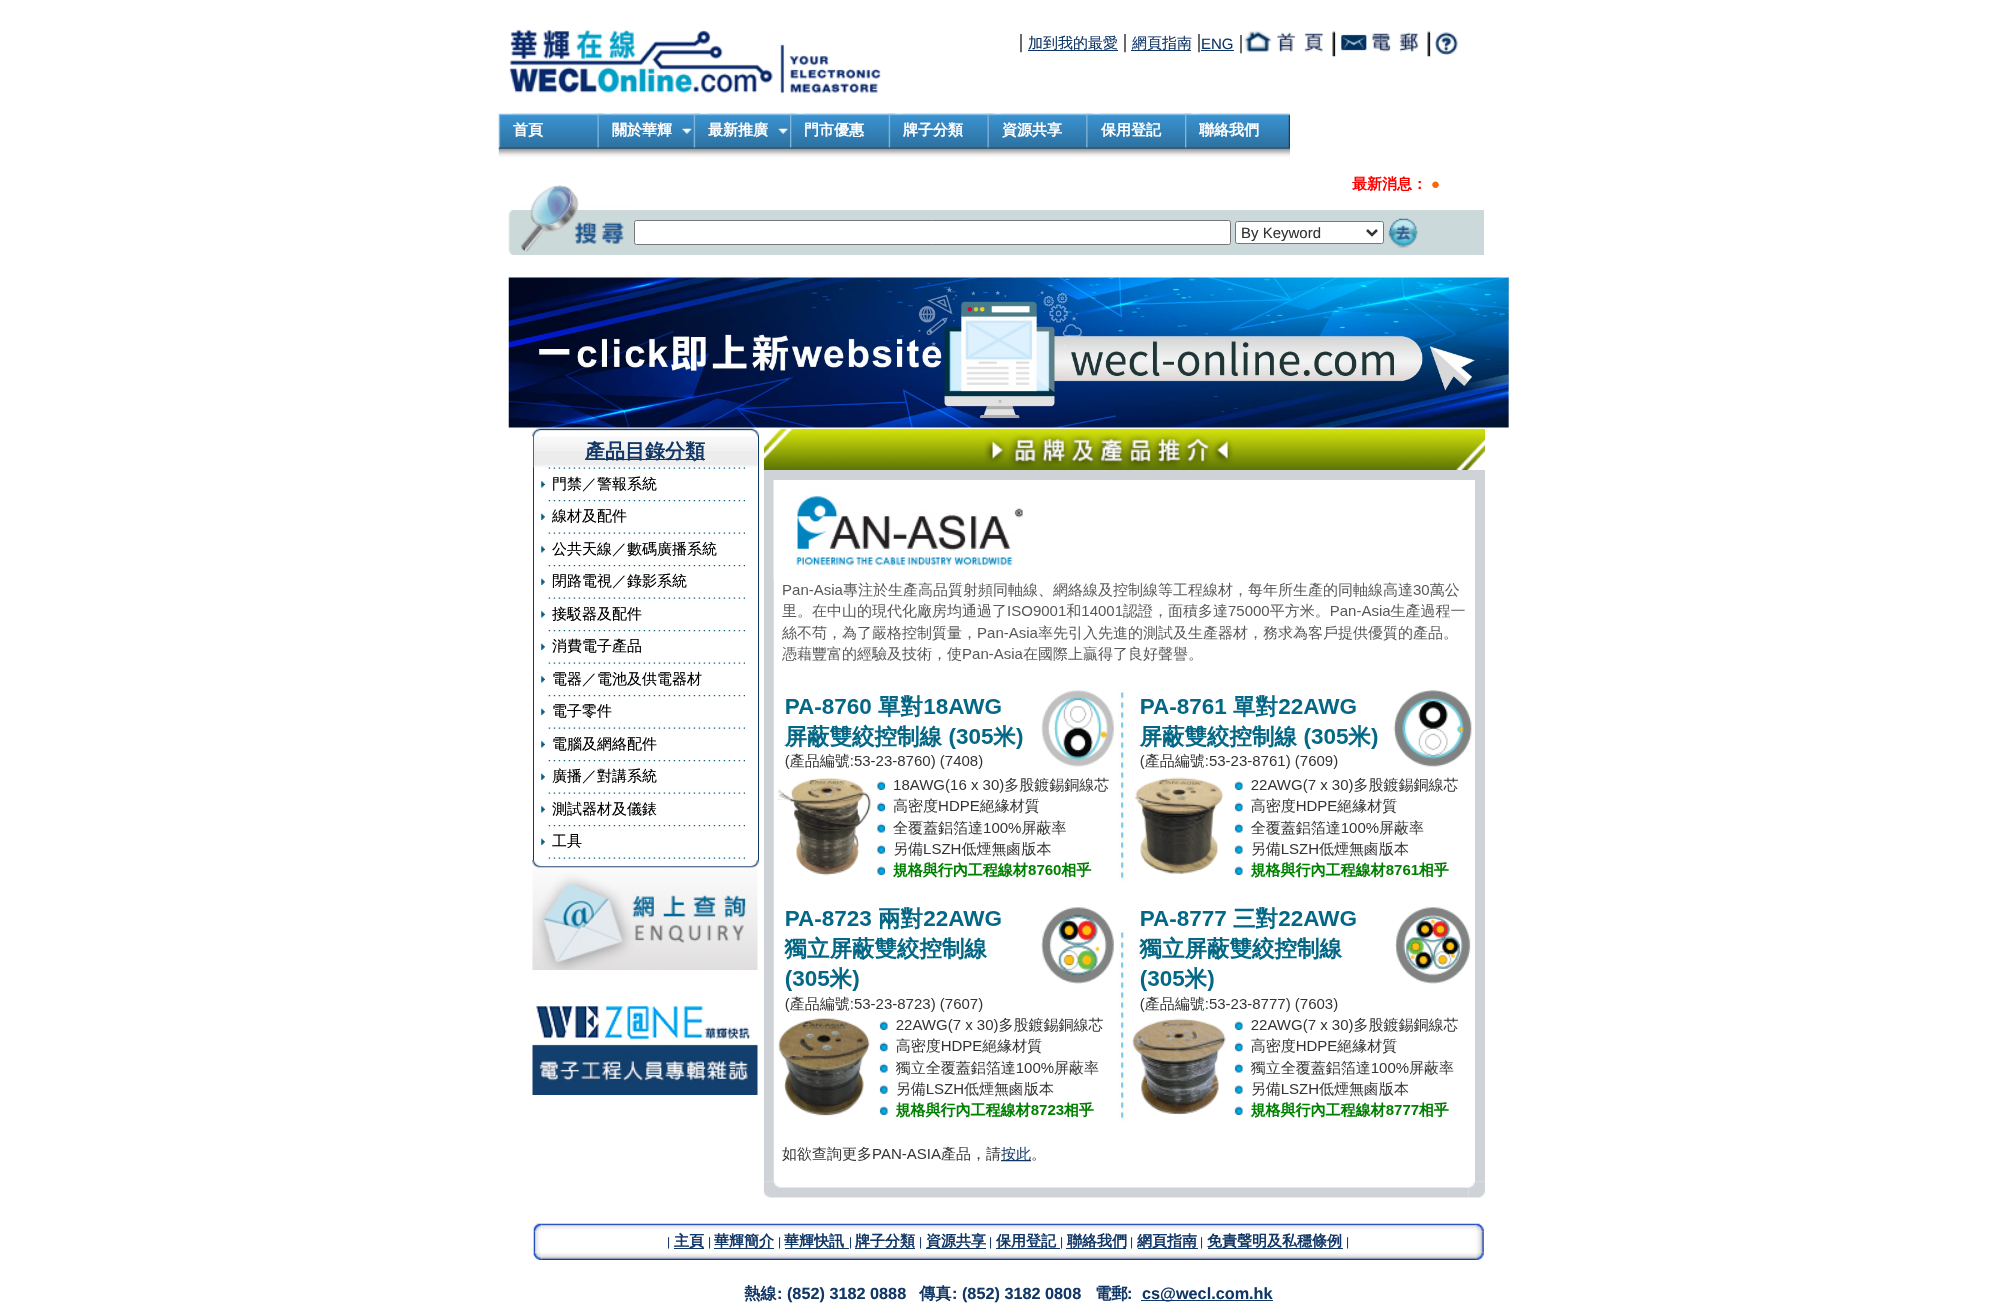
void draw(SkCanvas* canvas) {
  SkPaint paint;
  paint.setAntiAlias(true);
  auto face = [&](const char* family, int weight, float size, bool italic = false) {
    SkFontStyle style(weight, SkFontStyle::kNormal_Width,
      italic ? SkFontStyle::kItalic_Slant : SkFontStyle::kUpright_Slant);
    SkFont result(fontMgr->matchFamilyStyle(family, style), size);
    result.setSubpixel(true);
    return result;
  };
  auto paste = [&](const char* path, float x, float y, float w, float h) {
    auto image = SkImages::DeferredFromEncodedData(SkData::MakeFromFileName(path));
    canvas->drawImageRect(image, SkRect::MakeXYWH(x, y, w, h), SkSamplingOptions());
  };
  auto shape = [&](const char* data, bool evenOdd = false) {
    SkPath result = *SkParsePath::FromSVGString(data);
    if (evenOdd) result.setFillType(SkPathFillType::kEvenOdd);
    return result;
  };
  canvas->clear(0xffffffff);
  paste("img/1.png", 509, 29, 372, 65);
  {
    const struct { float x, y, w, h; SkColor color; } items[] = {
      {1028, 50, 90, 1, 0xff113766},
      {1131, 50, 60, 1, 0xff113766},
      {1201, 50, 33, 1, 0xff113766},
    };
    for (auto [x, y, w, h, color] : items) {
      paint.setColor(color);
      canvas->drawRect(SkRect::MakeXYWH(x, y, w, h), paint);
    }
  }
  paste("img/2.png", 1243, 30, 93, 27);
  paste("img/3.png", 1341, 31, 90, 26);
  paste("img/4.png", 1435, 32, 23, 23);
  paste("img/5.png", 498, 113, 106, 44);
  paste("img/6.png", 512, 113, 92, 41);
  paste("img/7.png", 597, 113, 103, 44);
  paste("img/8.png", 611, 113, 89, 35);
  paste("img/9.png", 693, 113, 104, 44);
  paste("img/10.png", 707, 113, 90, 41);
  paste("img/11.png", 790, 113, 105, 44);
  paste("img/12.png", 803, 113, 92, 35);
  paste("img/13.png", 888, 113, 106, 44);
  paste("img/6.png", 902, 113, 92, 41);
  paste("img/14.png", 987, 113, 106, 44);
  paste("img/15.png", 1001, 113, 92, 42);
  paste("img/16.png", 1086, 113, 106, 44);
  paste("img/17.png", 1100, 113, 92, 41);
  paste("img/11.png", 1185, 113, 105, 44);
  paste("img/12.png", 1198, 113, 92, 35);
  paste("img/18.png", 513, 185, 120, 25);
  paint.setColor(0xffccd9da);
  canvas->drawRect(SkRect::MakeXYWH(624, 210, 860, 45), paint);
  paste("img/19.png", 508, 210, 116, 45);
  paint.setColor(0xffffffff);
  canvas->drawRoundRect(SkRect::MakeXYWH(634.5f, 220.5f, 596, 24), 2, 2, paint);
  paint.setStroke(true);
  paint.setStrokeWidth(1);
  paint.setColor(0xff767676);
  canvas->drawRoundRect(SkRect::MakeXYWH(634.5f, 220.5f, 596, 24), 2, 2, paint);
  paint.setStroke(false);
  paint.setColor(0xffffffff);
  canvas->drawRoundRect(SkRect::MakeXYWH(1235.5f, 221.5f, 148, 22), 2, 2, paint);
  paint.setStroke(true);
  paint.setColor(0xff767676);
  canvas->drawRoundRect(SkRect::MakeXYWH(1235.5f, 221.5f, 148, 22), 2, 2, paint);
  paint.setStrokeWidth(2.5f);
  paint.setColor(0xff333333);
  canvas->drawPath(shape("M1367 230L1372 235L1377 230"), paint);
  paste("img/20.png", 1388, 218, 30, 30);
  paste("img/21.png", 508, 277, 1001, 151);
  paint.setStroke(false);
  paint.setColor(0xff113766);
  canvas->drawRect(SkRect::MakeXYWH(533, 436, 1, 424), paint);
  paste("img/23.png", 533, 436, 225, 32);
  canvas->drawRect(SkRect::MakeXYWH(758, 436, 1, 424), paint);
  paste("img/22.png", 532, 428, 227, 9);
  canvas->drawRect(SkRect::MakeXYWH(585, 459, 120, 1), paint);
  paste("img/24.png", 548, 467, 197, 2);
  paste("img/25.png", 541, 481, 4, 7);
  paste("img/26.png", 548, 500, 197, 2);
  paste("img/27.png", 541, 513, 4, 7);
  paste("img/28.png", 548, 532, 197, 2);
  paste("img/25.png", 541, 546, 4, 7);
  paste("img/26.png", 548, 565, 197, 2);
  paste("img/27.png", 541, 578, 4, 7);
  paste("img/28.png", 548, 597, 197, 2);
  paste("img/25.png", 541, 611, 4, 7);
  paste("img/26.png", 548, 630, 197, 2);
  paste("img/27.png", 541, 643, 4, 7);
  paste("img/28.png", 548, 662, 197, 2);
  paste("img/25.png", 541, 676, 4, 7);
  paste("img/26.png", 548, 695, 197, 2);
  paste("img/27.png", 541, 708, 4, 7);
  paste("img/28.png", 548, 727, 197, 2);
  paste("img/25.png", 541, 741, 4, 7);
  paste("img/26.png", 548, 760, 197, 2);
  paste("img/27.png", 541, 773, 4, 7);
  paste("img/28.png", 548, 792, 197, 2);
  paste("img/25.png", 541, 806, 4, 7);
  paste("img/26.png", 548, 825, 197, 2);
  paste("img/27.png", 541, 838, 4, 7);
  paste("img/28.png", 548, 857, 197, 2);
  paste("img/29.png", 532, 860, 227, 8);
  paste("img/30.png", 532, 867, 226, 103);
  paste("img/31.png", 532, 1006, 226, 89);
  paste("img/32.png", 763, 428, 722, 770);
  paste("img/36.png", 533, 1231, 7, 22);
  paste("img/33.png", 533, 1223, 9, 9);
  paste("img/34.png", 541, 1223, 936, 7);
  paste("img/37.png", 1476, 1231, 8, 22);
  paste("img/35.png", 1476, 1223, 8, 9);
  {
    const struct { float x, y, w, h; SkColor color; } items[] = {
      {674, 1248, 30, 1, 0xff113766},
      {714, 1248, 60, 1, 0xff113766},
      {785, 1248, 64, 1, 0xff113766},
      {855, 1248, 60, 1, 0xff113766},
      {926, 1248, 60, 1, 0xff113766},
      {996, 1248, 64, 1, 0xff113766},
      {1066, 1248, 60, 1, 0xff113766},
      {1138, 1248, 60, 1, 0xff113766},
      {1208, 1248, 135, 1, 0xff113766},
    };
    for (auto [x, y, w, h, color] : items) {
      paint.setColor(color);
      canvas->drawRect(SkRect::MakeXYWH(x, y, w, h), paint);
    }
  }
  paste("img/38.png", 533, 1252, 9, 8);
  paste("img/39.png", 541, 1253, 936, 7);
  paste("img/40.png", 1476, 1252, 8, 8);
  canvas->drawRect(SkRect::MakeXYWH(1141, 1300, 132, 1), paint);
  auto f0 = face("Liberation Serif", 400, 20);
  paint.setColor(0xff000000);
  canvas->drawString("|", 1019, 48, f0, paint);
  auto f1 = face("WenQuanYi Zen Hei", 500, 15);
  paint.setColor(0xff113766);
  canvas->drawString("加到我的最愛", 1028, 48, f1, paint);
  paint.setColor(0xff000000);
  canvas->drawString("|", 1123, 48, f0, paint);
  paint.setColor(0xff113766);
  canvas->drawString("網頁指南", 1132, 48, f1, paint);
  paint.setColor(0xff000000);
  canvas->drawString("|", 1197, 48, f0, paint);
  auto f2 = face("Liberation Sans", 400, 15);
  paint.setColor(0xff113766);
  canvas->drawString("ENG", 1201, 49, f2, paint);
  paint.setColor(0xff000000);
  canvas->drawString("|", 1239, 49, f0, paint);
  auto f3 = face("WenQuanYi Zen Hei", 700, 15);
  paint.setColor(0xffffffff);
  {
    const struct { const char* s; float x, y; } items[] = {
      {"首頁", 513, 135},
      {"關於華輝", 612, 135},
      {"最新推廣", 708, 135},
      {"門市優惠", 804, 135},
      {"牌子分類", 903, 135},
      {"資源共享", 1002, 135},
      {"保用登記", 1101, 135},
      {"聯絡我們", 1199, 135},
    };
    for (auto [s, x, y] : items) {
      canvas->drawString(s, x, y, f3, paint);
    }
  }
  paint.setColor(0xffff0000);
  canvas->drawString("最新消息：", 1352, 189, f3, paint);
  auto f4 = face("Liberation Sans", 700, 15);
  paint.setColor(0xffff6600);
  canvas->drawString("●", 1431, 189, f4, paint);
  paint.setColor(0xff333333);
  canvas->drawString("By Keyword", 1241, 238, f2, paint);
  auto f5 = face("WenQuanYi Zen Hei", 700, 20);
  paint.setColor(0xff113766);
  canvas->drawString("產品目錄分類", 585, 458, f5, paint);
  paint.setColor(0xff000000);
  {
    const struct { const char* s; float x, y; } items[] = {
      {"門禁／警報系統", 552, 489},
      {"線材及配件", 552, 521},
      {"公共天線／數碼廣播系統", 552, 554},
      {"閉路電視／錄影系統", 552, 586},
      {"接駁器及配件", 552, 619},
      {"消費電子產品", 552, 651},
      {"電器／電池及供電器材", 552, 684},
      {"電子零件", 552, 716},
      {"電腦及網絡配件", 552, 749},
      {"廣播／對講系統", 552, 781},
      {"測試器材及儀錶", 552, 814},
      {"工具", 552, 846},
    };
    for (auto [s, x, y] : items) {
      canvas->drawString(s, x, y, f1, paint);
    }
  }
  auto f6 = face("Liberation Sans", 400, 12);
  paint.setColor(0xff113766);
  canvas->drawString("|", 667, 1246, f6, paint);
  canvas->drawString("主頁", 674, 1246, f3, paint);
  canvas->drawString("|", 708, 1246, f6, paint);
  canvas->drawString("華輝簡介", 714, 1246, f3, paint);
  canvas->drawString("|", 778, 1246, f6, paint);
  canvas->drawString("華輝快訊", 784, 1246, f3, paint);
  canvas->drawString("|", 849, 1246, f6, paint);
  canvas->drawString("牌子分類", 855, 1246, f3, paint);
  canvas->drawString("|", 919, 1246, f6, paint);
  canvas->drawString("資源共享", 926, 1246, f3, paint);
  canvas->drawString("|", 989, 1246, f6, paint);
  canvas->drawString("保用登記", 996, 1246, f3, paint);
  canvas->drawString("|", 1060, 1246, f6, paint);
  canvas->drawString("聯絡我們", 1067, 1246, f3, paint);
  canvas->drawString("|", 1130, 1246, f6, paint);
  canvas->drawString("網頁指南", 1137, 1246, f3, paint);
  canvas->drawString("|", 1200, 1246, f6, paint);
  canvas->drawString("免責聲明及私穩條例", 1207, 1246, f3, paint);
  canvas->drawString("|", 1346, 1246, f6, paint);
  auto f7 = face("WenQuanYi Zen Hei", 700, 16.25f);
  canvas->drawString("熱線", 744, 1299, f7, paint);
  auto f8 = face("Liberation Sans", 700, 16.25f);
  canvas->drawString(": (852) 3182 0888", 777, 1299, f8, paint);
  canvas->drawString("傳真", 919, 1299, f7, paint);
  canvas->drawString(": (852) 3182 0808", 952, 1299, f8, paint);
  canvas->drawString("電郵", 1095, 1299, f7, paint);
  canvas->drawString(":", 1127, 1299, f8, paint);
  canvas->drawString("cs@wecl.com.hk", 1142, 1299, f8, paint);
}
